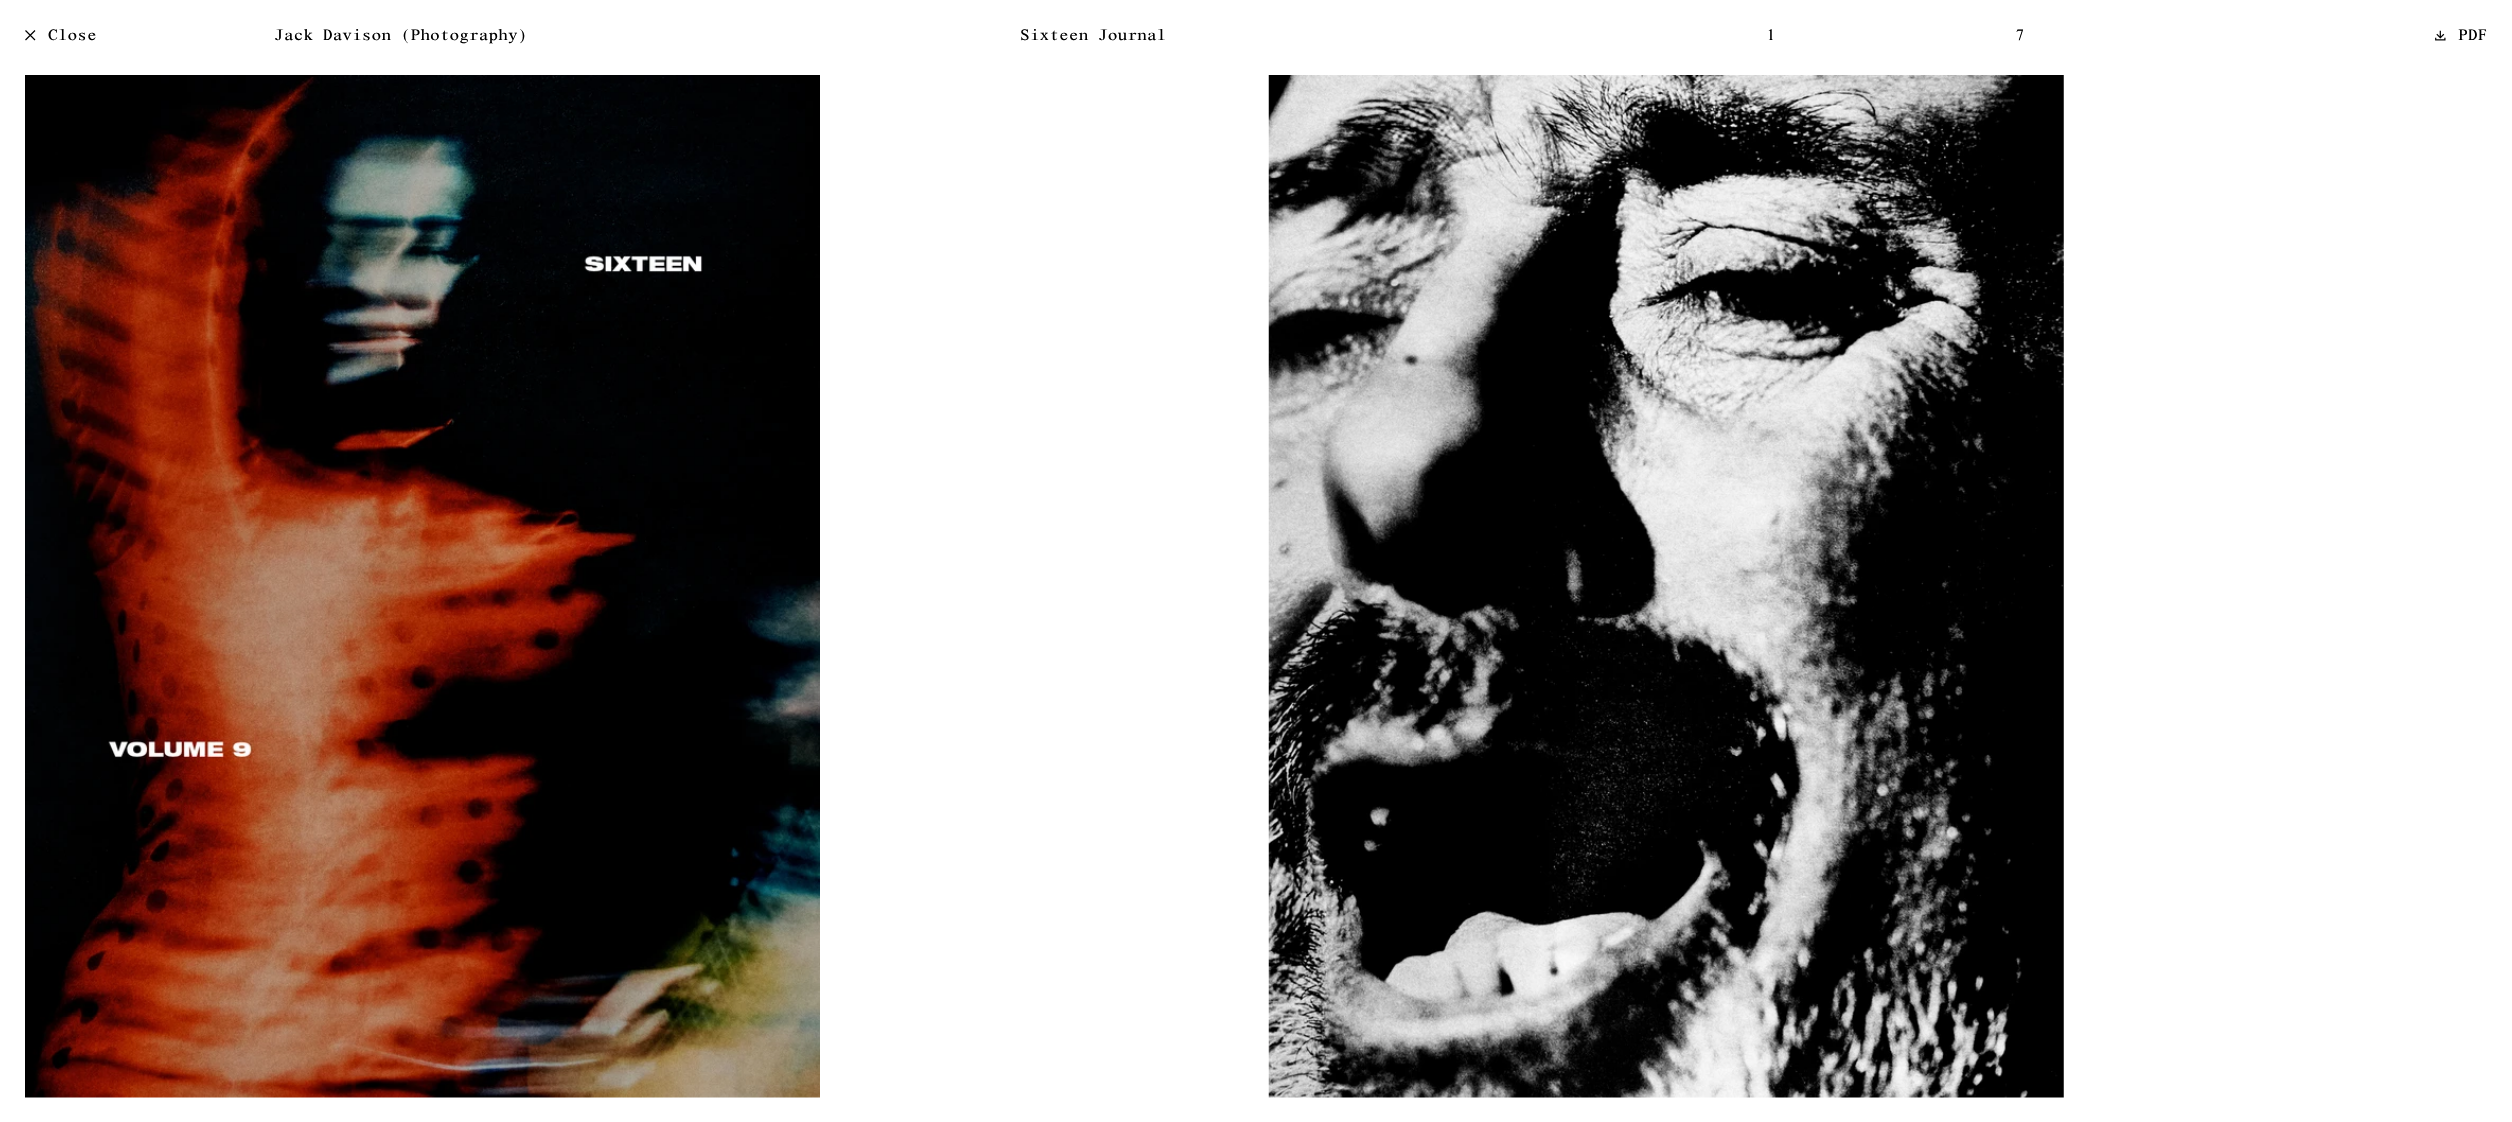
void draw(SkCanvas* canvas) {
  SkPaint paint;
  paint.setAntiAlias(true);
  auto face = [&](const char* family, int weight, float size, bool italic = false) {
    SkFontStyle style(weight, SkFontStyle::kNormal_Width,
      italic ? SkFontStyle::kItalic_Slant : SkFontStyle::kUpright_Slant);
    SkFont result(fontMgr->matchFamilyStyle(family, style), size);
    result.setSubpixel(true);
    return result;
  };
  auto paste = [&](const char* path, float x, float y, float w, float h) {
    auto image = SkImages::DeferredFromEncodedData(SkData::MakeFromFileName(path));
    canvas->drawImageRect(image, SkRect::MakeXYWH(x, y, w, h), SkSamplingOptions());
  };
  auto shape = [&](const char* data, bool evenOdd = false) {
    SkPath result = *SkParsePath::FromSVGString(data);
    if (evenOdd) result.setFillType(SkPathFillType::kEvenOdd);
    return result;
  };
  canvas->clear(0xffffffff);
  paint.setStroke(true);
  paint.setStrokeWidth(1.2f);
  paint.setColor(0xff000000);
  canvas->drawPath(shape("M35 40L25.5 30.5M25.5 40L35 30.5"), paint);
  paste("img/1.png", 2435, 30, 11, 11);
  paste("img/2.png", 25, 75, 795, 1023);
  paste("img/3.png", 1268, 75, 796, 1023);
  auto f0 = face("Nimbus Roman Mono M", 400, 16.25f);
  paint.setStroke(false);
  {
    const struct { const char* s; float x, y; } items[] = {
      {"Close", 48, 40},
      {"Jack Davison (Photography)", 274, 40},
      {"Sixteen Journal", 1020, 40},
      {"1", 1766, 40},
      {"7", 2015, 40},
      {"PDF", 2458, 40},
    };
    for (auto [s, x, y] : items) {
      canvas->drawString(s, x, y, f0, paint);
    }
  }
}
